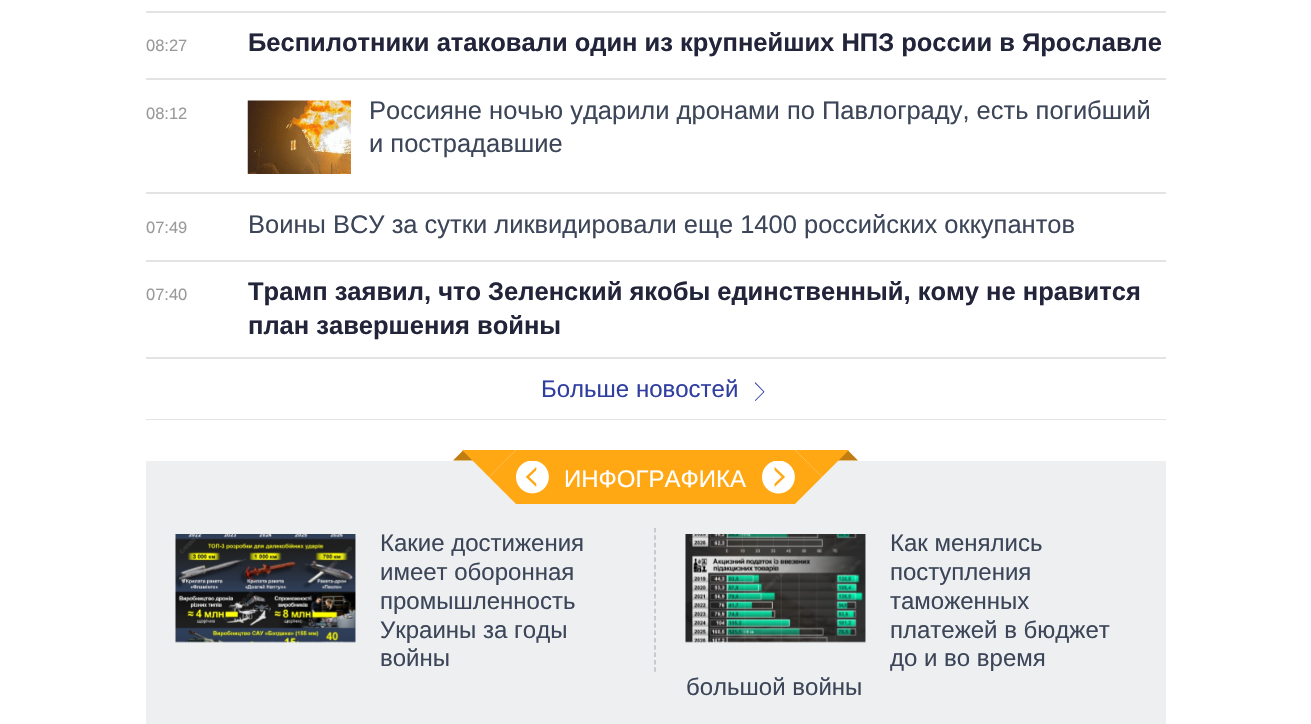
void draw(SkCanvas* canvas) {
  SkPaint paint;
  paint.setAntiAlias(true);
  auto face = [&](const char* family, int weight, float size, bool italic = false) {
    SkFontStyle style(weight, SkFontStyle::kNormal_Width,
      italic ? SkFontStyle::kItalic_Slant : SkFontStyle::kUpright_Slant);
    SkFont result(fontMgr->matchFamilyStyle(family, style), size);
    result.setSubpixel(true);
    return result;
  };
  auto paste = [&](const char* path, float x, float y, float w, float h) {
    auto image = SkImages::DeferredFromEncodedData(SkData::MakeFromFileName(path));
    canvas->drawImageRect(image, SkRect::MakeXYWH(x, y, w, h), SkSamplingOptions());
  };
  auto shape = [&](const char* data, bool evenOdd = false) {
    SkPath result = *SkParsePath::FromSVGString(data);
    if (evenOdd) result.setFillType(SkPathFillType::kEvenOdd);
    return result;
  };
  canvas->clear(0xffffffff);
  paint.setColor(0xffe3e3e3);
  canvas->drawRect(SkRect::MakeXYWH(146, 11, 1020, 2), paint);
  canvas->drawRect(SkRect::MakeXYWH(146, 78, 1020, 2), paint);
  paste("img/1.png", 247, 100, 104, 74);
  {
    const struct { float x, y, w, h; SkColor color; } items[] = {
      {146, 192, 1020, 2, 0xffe3e3e3},
      {146, 260, 1020, 2, 0xffe3e3e3},
      {146, 357, 1020, 2, 0xffe3e3e3},
      {146, 419, 1020, 1, 0xffe3e3e3},
    };
    for (auto [x, y, w, h, color] : items) {
      paint.setColor(color);
      canvas->drawRect(SkRect::MakeXYWH(x, y, w, h), paint);
    }
  }
  paste("img/2.png", 755, 382, 10, 19);
  paint.setColor(0xffedeff1);
  canvas->drawRect(SkRect::MakeXYWH(146, 461, 1020, 263), paint);
  paint.setColor(0xffffa814);
  canvas->drawRect(SkRect::MakeXYWH(516, 450, 279, 54), paint);
  paint.setColor(0xffbf7e0f);
  canvas->drawPath(shape("M474 460.5H453L463.5 450Z"), paint);
  paint.setColor(0xffffa814);
  canvas->drawPath(shape("M462 450H516L489 477Z"), paint);
  canvas->drawPath(shape("M516 450V504L489 477Z"), paint);
  paint.setColor(0xffbf7e0f);
  canvas->drawPath(shape("M858 460.5H837L847.5 450Z"), paint);
  paint.setColor(0xffffa814);
  canvas->drawPath(shape("M795 450H849L822 477Z"), paint);
  canvas->drawPath(shape("M795 504V450L822 477Z"), paint);
  paste("img/3.png", 516, 461, 33, 33);
  paste("img/4.png", 762, 461, 33, 33);
  paste("img/5.png", 175, 534, 181, 109);
  paint.setStroke(true);
  paint.setStrokeWidth(1.5f);
  paint.setColor(0xffbbc0c6);
  paint.setPathEffect(SkDashPathEffect::Make({{4.5f, 2.83f}}, 0));
  canvas->drawPath(shape("M655 528V672"), paint);
  paint.setPathEffect(nullptr);
  paste("img/6.png", 685, 534, 181, 109);
  auto f0 = face("Liberation Sans", 400, 16.5f);
  paint.setStroke(false);
  paint.setColor(0xff999999);
  canvas->drawString("08:27", 146, 51, f0, paint);
  auto f1 = face("Liberation Sans", 700, 25.5f);
  paint.setColor(0xff22243a);
  canvas->drawString("Беспилотники атаковали один из крупнейших НПЗ россии в Ярославле", 248, 51, f1, paint);
  paint.setColor(0xff999999);
  canvas->drawString("08:12", 146, 119, f0, paint);
  auto f2 = face("Liberation Sans", 400, 25.5f);
  paint.setColor(0xff3c4658);
  canvas->drawString("Россияне ночью ударили дронами по Павлограду, есть погибший", 369, 119, f2, paint);
  canvas->drawString("и пострадавшие", 369, 152, f2, paint);
  paint.setColor(0xff999999);
  canvas->drawString("07:49", 146, 233, f0, paint);
  paint.setColor(0xff3c4658);
  canvas->drawString("Воины ВСУ за сутки ликвидировали еще 1400 российских оккупантов", 248, 233, f2, paint);
  paint.setColor(0xff999999);
  canvas->drawString("07:40", 146, 300, f0, paint);
  canvas->save();
  canvas->clipRect(SkRect::MakeXYWH(248, 276, 918, 66));
  paint.setColor(0xff22243a);
  canvas->drawString("Трамп заявил, что Зеленский якобы единственный, кому не нравится", 248, 300, f1, paint);
  canvas->restore();
  canvas->drawString("план завершения войны", 248, 334, f1, paint);
  auto f3 = face("Liberation Sans", 400, 24);
  paint.setColor(0xff303f9f);
  canvas->drawString("Больше новостей", 541, 397, f3, paint);
  paint.setColor(0xffffffff);
  canvas->drawString("ИНФОГРАФИКА", 564, 487, f3, paint);
  paint.setColor(0xff3c4658);
  {
    const struct { const char* s; float x, y; } items[] = {
      {"Какие достижения", 380, 551},
      {"имеет оборонная", 380, 580},
      {"промышленность", 380, 609},
      {"Украины за годы", 380, 638},
      {"войны", 380, 666},
      {"Как менялись", 890, 551},
      {"поступления", 890, 580},
      {"таможенных", 890, 609},
      {"платежей в бюджет", 890, 638},
      {"до и во время", 890, 666},
      {"большой войны", 686, 695},
    };
    for (auto [s, x, y] : items) {
      canvas->drawString(s, x, y, f3, paint);
    }
  }
}
